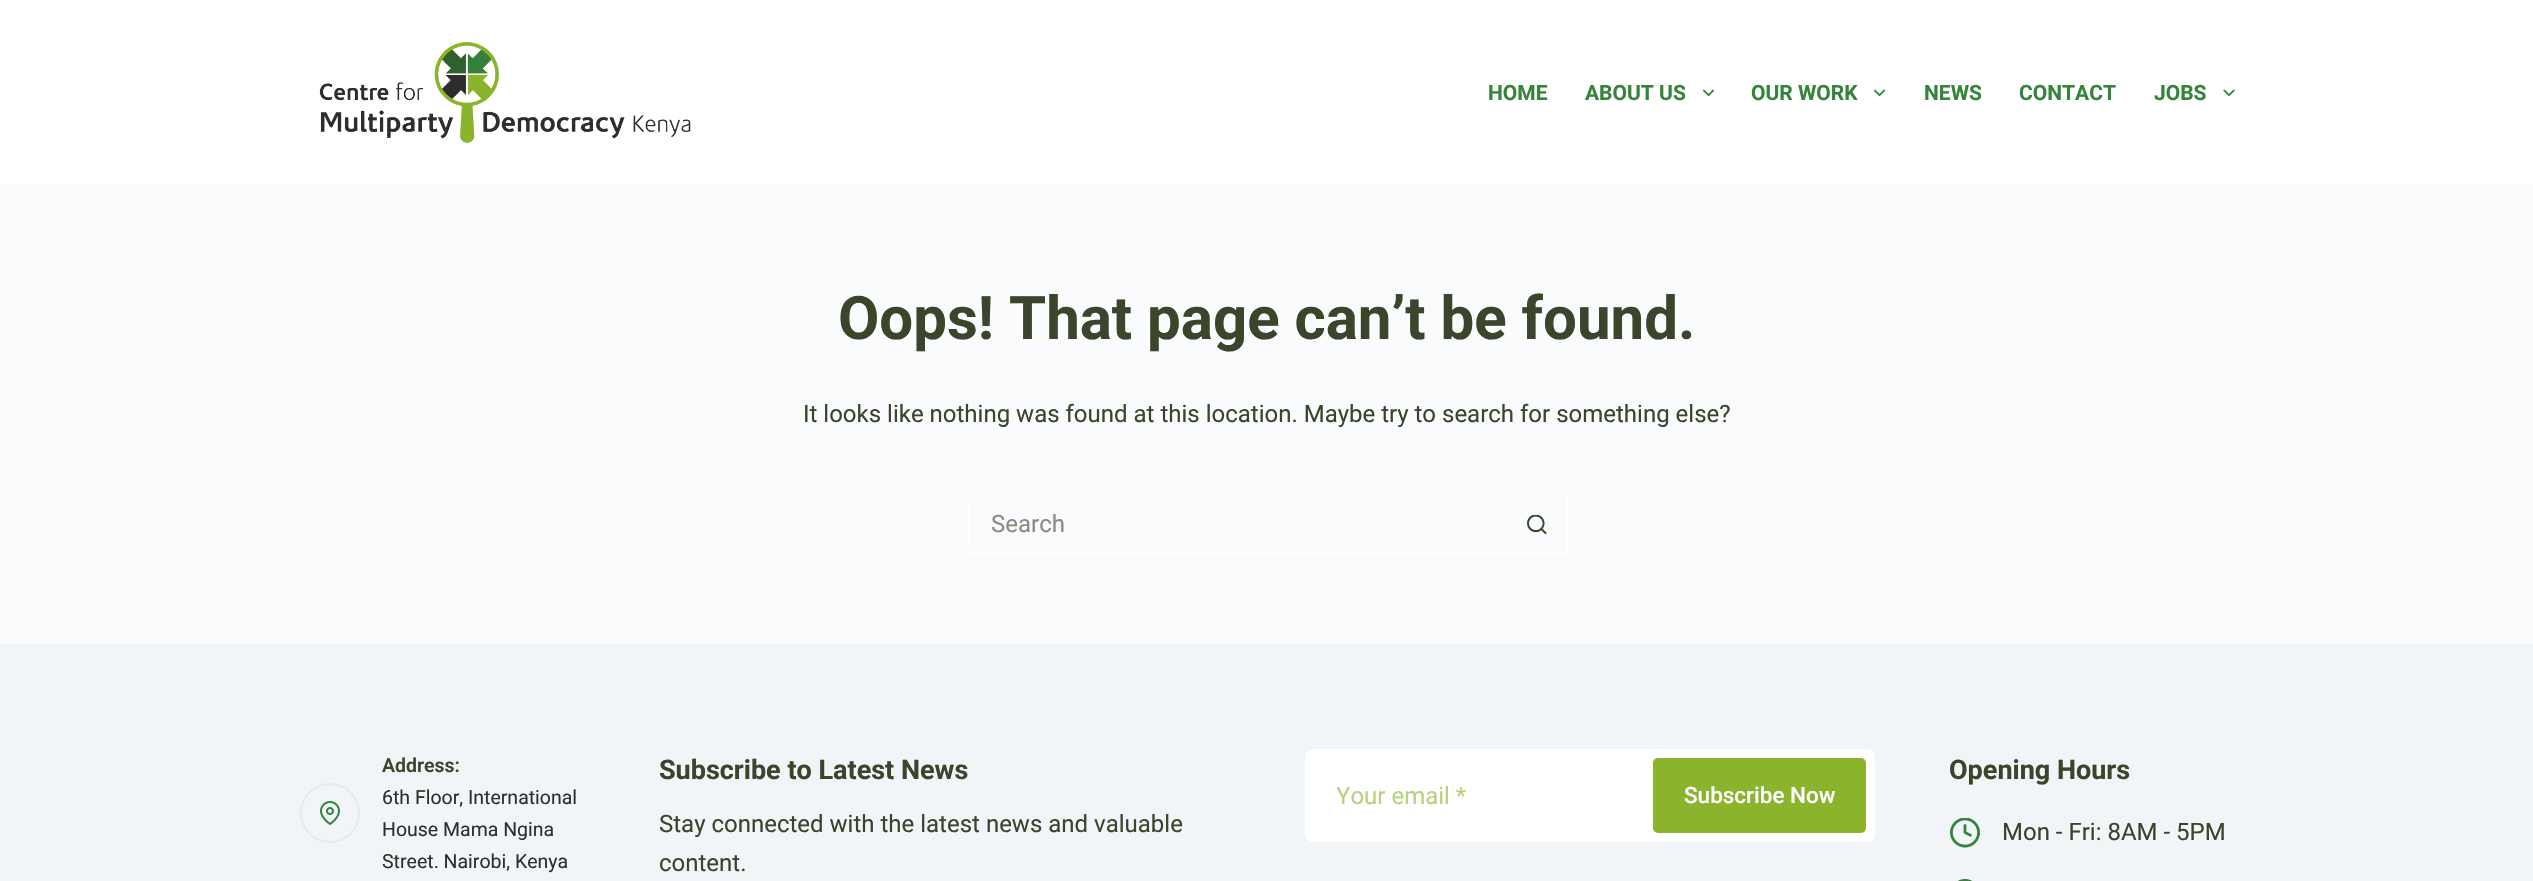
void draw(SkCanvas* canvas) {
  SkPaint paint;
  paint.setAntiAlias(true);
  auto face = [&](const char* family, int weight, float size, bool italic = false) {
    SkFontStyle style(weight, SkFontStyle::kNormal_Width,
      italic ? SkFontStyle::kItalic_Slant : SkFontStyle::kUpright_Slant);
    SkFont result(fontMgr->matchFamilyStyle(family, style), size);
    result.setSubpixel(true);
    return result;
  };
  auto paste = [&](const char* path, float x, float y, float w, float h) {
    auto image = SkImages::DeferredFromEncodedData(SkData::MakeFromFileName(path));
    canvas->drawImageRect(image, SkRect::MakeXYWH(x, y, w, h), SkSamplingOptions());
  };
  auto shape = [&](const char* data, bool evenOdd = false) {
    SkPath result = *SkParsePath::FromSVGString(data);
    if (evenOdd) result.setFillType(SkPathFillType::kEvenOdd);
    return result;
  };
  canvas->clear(0xfffafbfc);
  paint.setColor(0xffffffff);
  canvas->drawRect(SkRect::MakeXYWH(0, 0, 2533, 185), paint);
  paste("img/1.png", 319, 42, 372, 101);
  paste("img/2.png", 1703, 89, 12, 8);
  paste("img/2.png", 1874, 89, 12, 8);
  paste("img/3.png", 2223, 89, 12, 8);
  canvas->drawPath(shape("M972 494H1508V554H972C970 554 968 551 968 549V498C968 496 970 494 972 494ZM972 495H1508V552H972C970 552 969 551 969 549V498C969 496 970 495 972 495Z", true), paint);
  canvas->drawPath(shape("M1508 494H1563C1565 494 1568 496 1568 498V549C1568 551 1565 554 1563 554H1508ZM1508 495H1563C1565 495 1566 496 1566 498V549C1566 551 1565 552 1563 552H1508Z", true), paint);
  paste("img/4.png", 1527, 515, 20, 19);
  paint.setColor(0xfff2f5f7);
  canvas->drawRect(SkRect::MakeXYWH(0, 644, 2533, 237), paint);
  paint.setStroke(true);
  paint.setStrokeWidth(2);
  paint.setColor(0xffe6eaee);
  canvas->drawCircle(330, 813, 29, paint);
  paste("img/5.png", 320, 801, 20, 24);
  paint.setStroke(false);
  paint.setColor(0xffffffff);
  canvas->drawRoundRect(SkRect::MakeXYWH(1306, 750, 568, 91), 7, 7, paint);
  paint.setStroke(true);
  canvas->drawRoundRect(SkRect::MakeXYWH(1306, 750, 568, 91), 7, 7, paint);
  paint.setStroke(false);
  paint.setColor(0xff8bb32c);
  canvas->drawRoundRect(SkRect::MakeXYWH(1653, 758, 213, 75), 5, 5, paint);
  paste("img/6.png", 1950, 818, 30, 30);
  paste("img/7.png", 1957, 879, 16, 2);
  auto f0 = face("Roboto", 700, 21);
  paint.setColor(0xff34843b);
  {
    const struct { const char* s; float x, y; } items[] = {
      {"HOME", 1488, 100},
      {"ABOUT US", 1585, 100},
      {"OUR WORK", 1751, 100},
      {"NEWS", 1924, 100},
      {"CONTACT", 2019, 100},
      {"JOBS", 2154, 100},
    };
    for (auto [s, x, y] : items) {
      canvas->drawString(s, x, y, f0, paint);
    }
  }
  auto f1 = face("Roboto", 700, 60);
  paint.setColor(0xff3c442c);
  canvas->drawString("Oops! That page can’t be found.", 838, 339, f1, paint);
  auto f2 = face("Roboto", 400, 24);
  canvas->drawString("It looks like nothing was found at this location. Maybe try to search for something else?", 803, 422, f2, paint);
  paint.setColor(0xff888d7f);
  canvas->drawString("Search", 991, 532, f2, paint);
  auto f3 = face("Roboto", 600, 19.5f);
  paint.setColor(0xff3c442c);
  canvas->drawString("Address:", 382, 772, f3, paint);
  auto f4 = face("Roboto", 400, 19.5f);
  paint.setColor(0xff2c312c);
  {
    const struct { const char* s; float x, y; } items[] = {
      {"6th Floor, International", 382, 804},
      {"House Mama Ngina", 382, 836},
      {"Street. Nairobi, Kenya", 382, 868},
    };
    for (auto [s, x, y] : items) {
      canvas->drawString(s, x, y, f4, paint);
    }
  }
  auto f5 = face("Roboto", 700, 27);
  paint.setColor(0xff3c442c);
  canvas->drawString("Subscribe to Latest News", 659, 779, f5, paint);
  canvas->drawString("Stay connected with the latest news and valuable", 659, 832, f2, paint);
  canvas->drawString("content.", 659, 871, f2, paint);
  canvas->save();
  canvas->clipRect(SkRect::MakeXYWH(1337, 782, 279, 28));
  paint.setColor(0xffb9d180);
  canvas->drawString("Your email *", 1336, 804, f2, paint);
  canvas->restore();
  auto f6 = face("Roboto", 500, 22.5f);
  paint.setColor(0xffffffff);
  canvas->drawString("Subscribe Now", 1684, 803, f6, paint);
  paint.setColor(0xff3c442c);
  canvas->drawString("Opening Hours", 1949, 779, f5, paint);
  canvas->drawString("Mon - Fri: 8AM - 5PM", 2002, 840, f2, paint);
}
